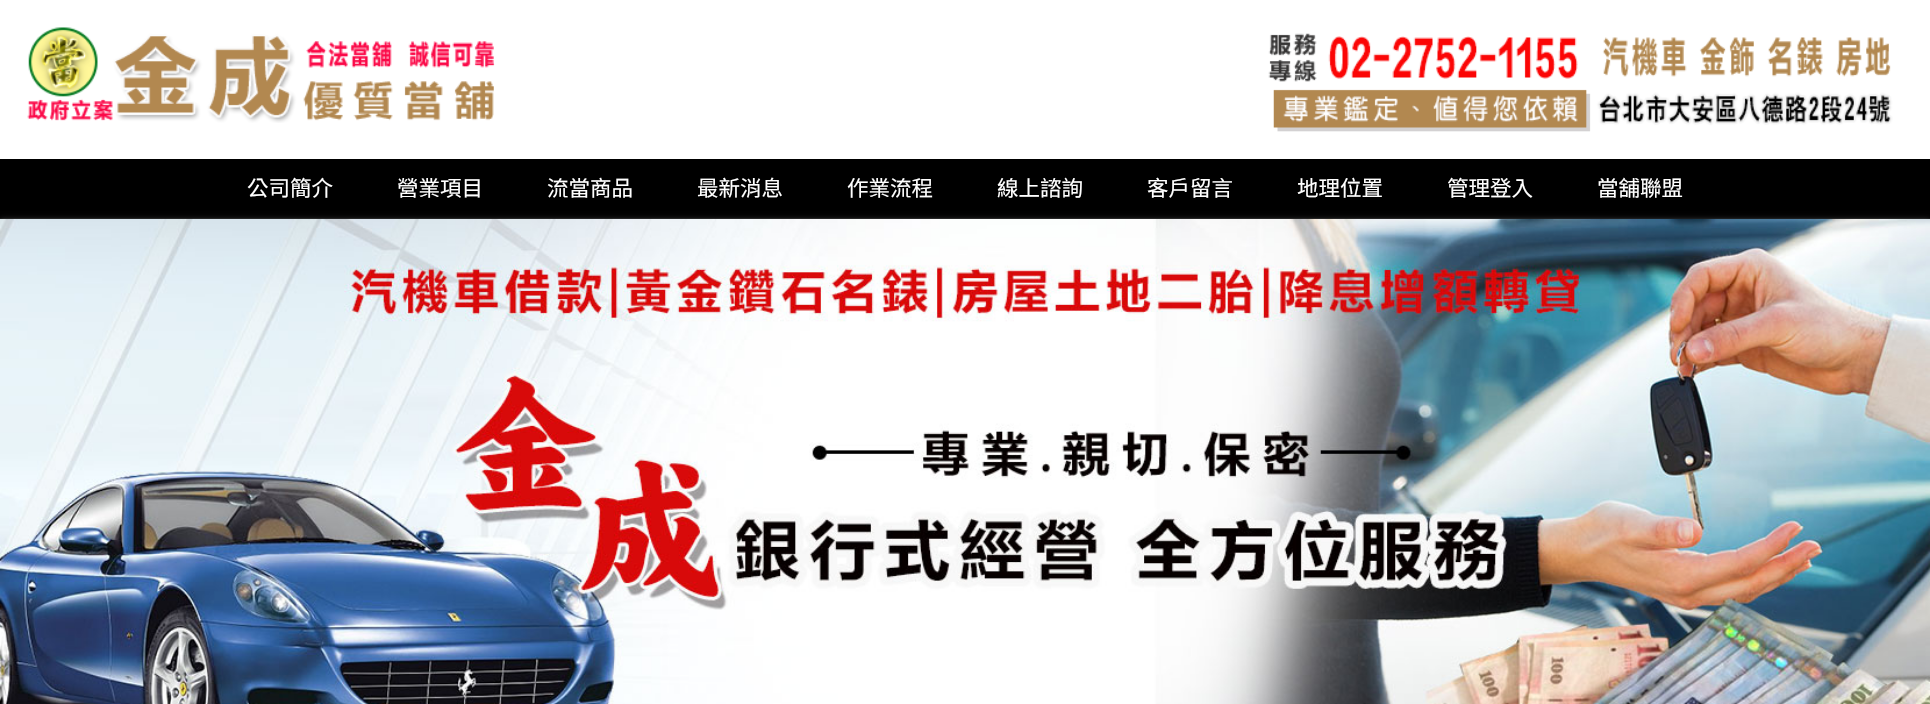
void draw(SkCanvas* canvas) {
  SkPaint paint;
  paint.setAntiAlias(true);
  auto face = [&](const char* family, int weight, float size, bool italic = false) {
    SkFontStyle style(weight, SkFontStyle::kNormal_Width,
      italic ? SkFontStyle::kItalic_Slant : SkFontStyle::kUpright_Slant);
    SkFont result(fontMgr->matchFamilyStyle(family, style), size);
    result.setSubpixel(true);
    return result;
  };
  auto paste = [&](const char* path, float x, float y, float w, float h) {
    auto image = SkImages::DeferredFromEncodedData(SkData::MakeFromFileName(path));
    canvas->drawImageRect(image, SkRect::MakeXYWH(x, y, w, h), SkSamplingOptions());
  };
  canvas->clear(0xffffffff);
  paste("img/1.png", 27, 27, 468, 96);
  paste("img/2.png", 1268, 33, 625, 99);
  paint.setColor(0xff000000);
  canvas->drawRect(SkRect::MakeXYWH(0, 159, 1930, 60), paint);
  paint.setColor(0xff4a4a4a);
  paint.setMaskFilter(SkMaskFilter::MakeBlur(kNormal_SkBlurStyle, 3));
  canvas->drawRect(SkRect::MakeXYWH(0, 220, 1930, 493), paint);
  paint.setMaskFilter(nullptr);
  paste("img/3.png", 0, 218, 1930, 486);
  auto f0 = face("Noto Sans CJK TC", 400, 21.5f);
  paint.setColor(0xffffffff);
  {
    const struct { const char* s; float x, y; } items[] = {
      {"公司簡介", 247, 196},
      {"營業項目", 397, 196},
      {"流當商品", 547, 196},
      {"最新消息", 697, 196},
      {"作業流程", 847, 196},
      {"線上諮詢", 997, 196},
      {"客戶留言", 1147, 196},
      {"地理位置", 1297, 196},
      {"管理登入", 1447, 196},
      {"當舖聯盟", 1597, 196},
    };
    for (auto [s, x, y] : items) {
      canvas->drawString(s, x, y, f0, paint);
    }
  }
}
